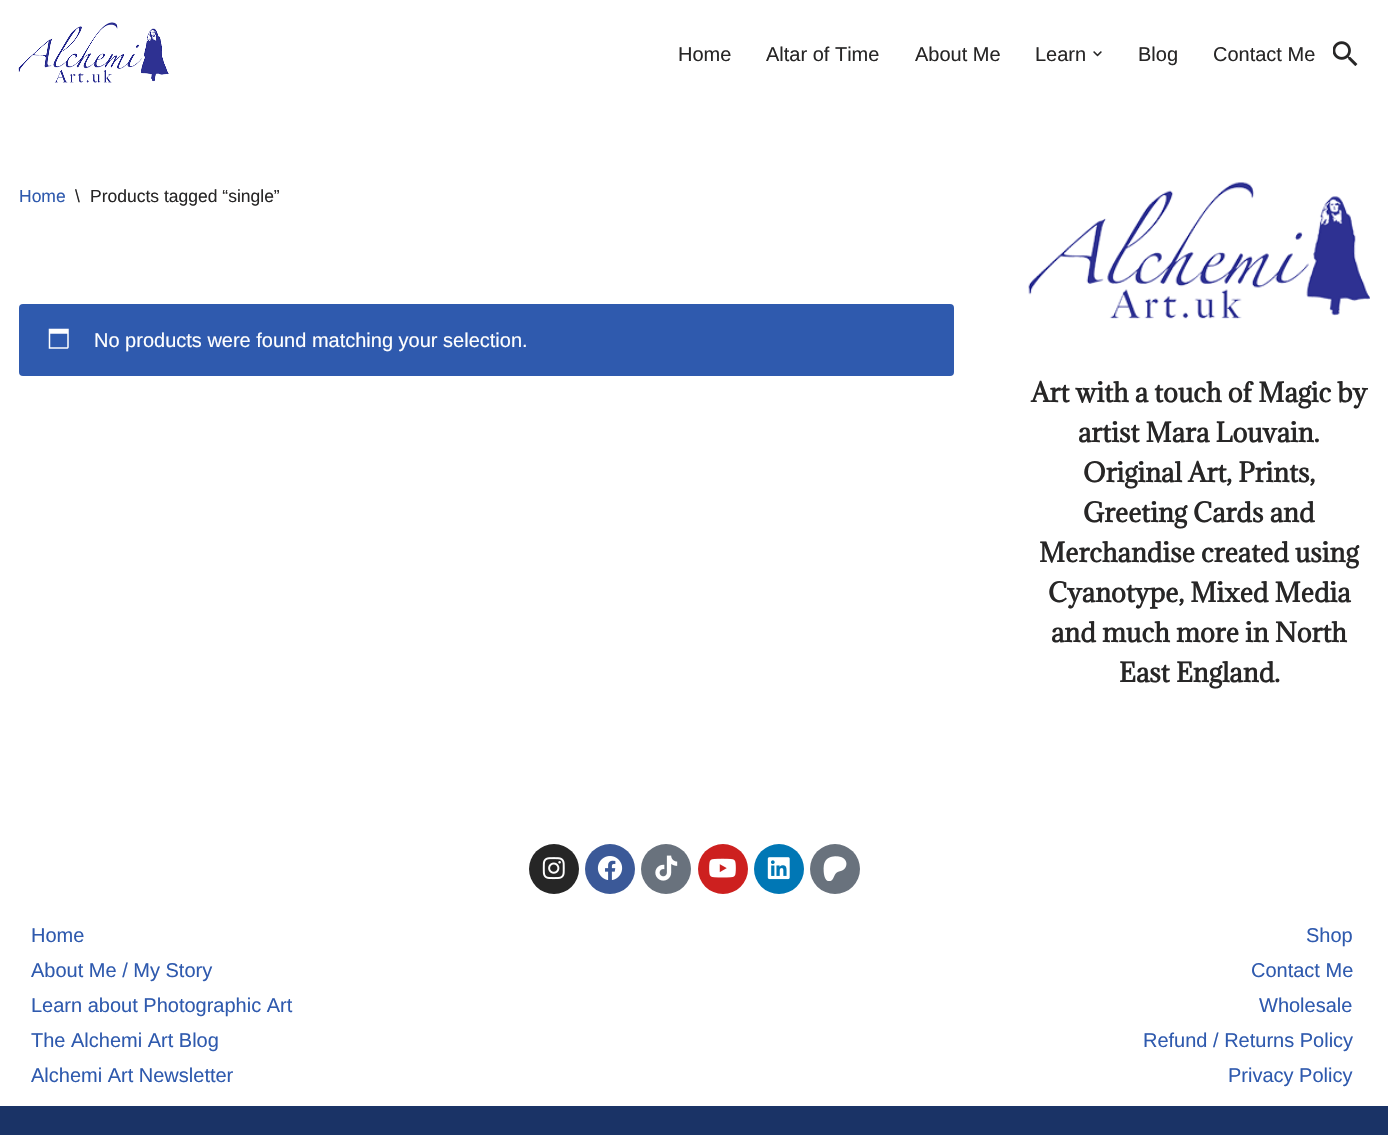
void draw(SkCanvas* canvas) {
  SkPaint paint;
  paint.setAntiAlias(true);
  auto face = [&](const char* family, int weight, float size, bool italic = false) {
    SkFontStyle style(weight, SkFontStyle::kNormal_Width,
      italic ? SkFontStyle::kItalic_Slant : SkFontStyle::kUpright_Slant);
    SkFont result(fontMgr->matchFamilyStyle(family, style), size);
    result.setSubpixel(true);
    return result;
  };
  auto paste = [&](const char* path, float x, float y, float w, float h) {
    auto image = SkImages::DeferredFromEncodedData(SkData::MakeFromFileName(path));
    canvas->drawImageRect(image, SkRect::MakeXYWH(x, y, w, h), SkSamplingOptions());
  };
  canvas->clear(0xffffffff);
  paste("img/1.png", 18, 22, 151, 61);
  paste("img/2.png", 1093, 51, 9, 6);
  paste("img/3.png", 1333, 41, 25, 25);
  paint.setColor(0xff2f5aae);
  canvas->drawRoundRect(SkRect::MakeXYWH(19, 304, 935, 72), 4, 4, paint);
  paste("img/4.png", 48, 328, 21, 21);
  paste("img/5.png", 1028, 182, 342, 137);
  paint.setColor(0xff262626);
  canvas->drawCircle(554, 869, 25, paint);
  paste("img/6.png", 542, 857, 23, 23);
  paint.setColor(0xff3b5998);
  canvas->drawCircle(610, 869, 25, paint);
  paste("img/7.png", 597, 856, 26, 24);
  paint.setColor(0xff69727d);
  canvas->drawCircle(666, 869, 25, paint);
  paste("img/8.png", 655, 855, 23, 26);
  paint.setColor(0xffcd201f);
  canvas->drawCircle(723, 869, 25, paint);
  paste("img/9.png", 709, 858, 27, 20);
  paint.setColor(0xff0077b5);
  canvas->drawCircle(779, 869, 25, paint);
  paste("img/10.png", 767, 857, 23, 23);
  paint.setColor(0xff69727d);
  canvas->drawCircle(835, 869, 25, paint);
  paste("img/11.png", 823, 856, 24, 25);
  paint.setColor(0xff1a3366);
  canvas->drawRect(SkRect::MakeXYWH(0, 1106, 1388, 29), paint);
  auto f0 = face("Liberation Sans", 400, 20);
  paint.setColor(0xff272626);
  {
    const struct { const char* s; float x, y; } items[] = {
      {"Home", 678, 61},
      {"Altar of Time", 766, 61},
      {"About Me", 915, 61},
      {"Learn", 1035, 61},
      {"Blog", 1138, 61},
      {"Contact Me", 1213, 61},
    };
    for (auto [s, x, y] : items) {
      canvas->drawString(s, x, y, f0, paint);
    }
  }
  auto f1 = face("Liberation Sans", 400, 17.5f);
  paint.setColor(0xff2f5aae);
  canvas->drawString("Home", 19, 202, f1, paint);
  paint.setColor(0xff272626);
  canvas->drawString("\\", 75, 202, f1, paint);
  canvas->drawString("Products tagged “single”", 90, 202, f1, paint);
  paint.setColor(0xffffffff);
  canvas->drawString("No products were found matching your selection.", 94, 347, f0, paint);
  auto f2 = face("Adamina", 700, 25);
  paint.setColor(0xff272626);
  {
    const struct { const char* s; float x, y; } items[] = {
      {"Art with a touch of Magic by", 1031, 402},
      {"artist Mara Louvain.", 1078, 442},
      {"Original Art, Prints,", 1083, 482},
      {"Greeting Cards and", 1083, 522},
      {"Merchandise created using", 1039, 562},
      {"Cyanotype, Mixed Media", 1048, 602},
      {"and much more in North", 1051, 642},
      {"East England.", 1119, 682},
    };
    for (auto [s, x, y] : items) {
      canvas->drawString(s, x, y, f2, paint);
    }
  }
  paint.setColor(0xff2f5aae);
  {
    const struct { const char* s; float x, y; } items[] = {
      {"Home", 31, 942},
      {"About Me / My Story", 31, 977},
      {"Learn about Photographic Art", 31, 1012},
      {"The Alchemi Art Blog", 31, 1047},
      {"Alchemi Art Newsletter", 31, 1082},
      {"Shop", 1306, 942},
      {"Contact Me", 1251, 977},
      {"Wholesale", 1259, 1012},
      {"Refund / Returns Policy", 1143, 1047},
      {"Privacy Policy", 1228, 1082},
    };
    for (auto [s, x, y] : items) {
      canvas->drawString(s, x, y, f0, paint);
    }
  }
}
